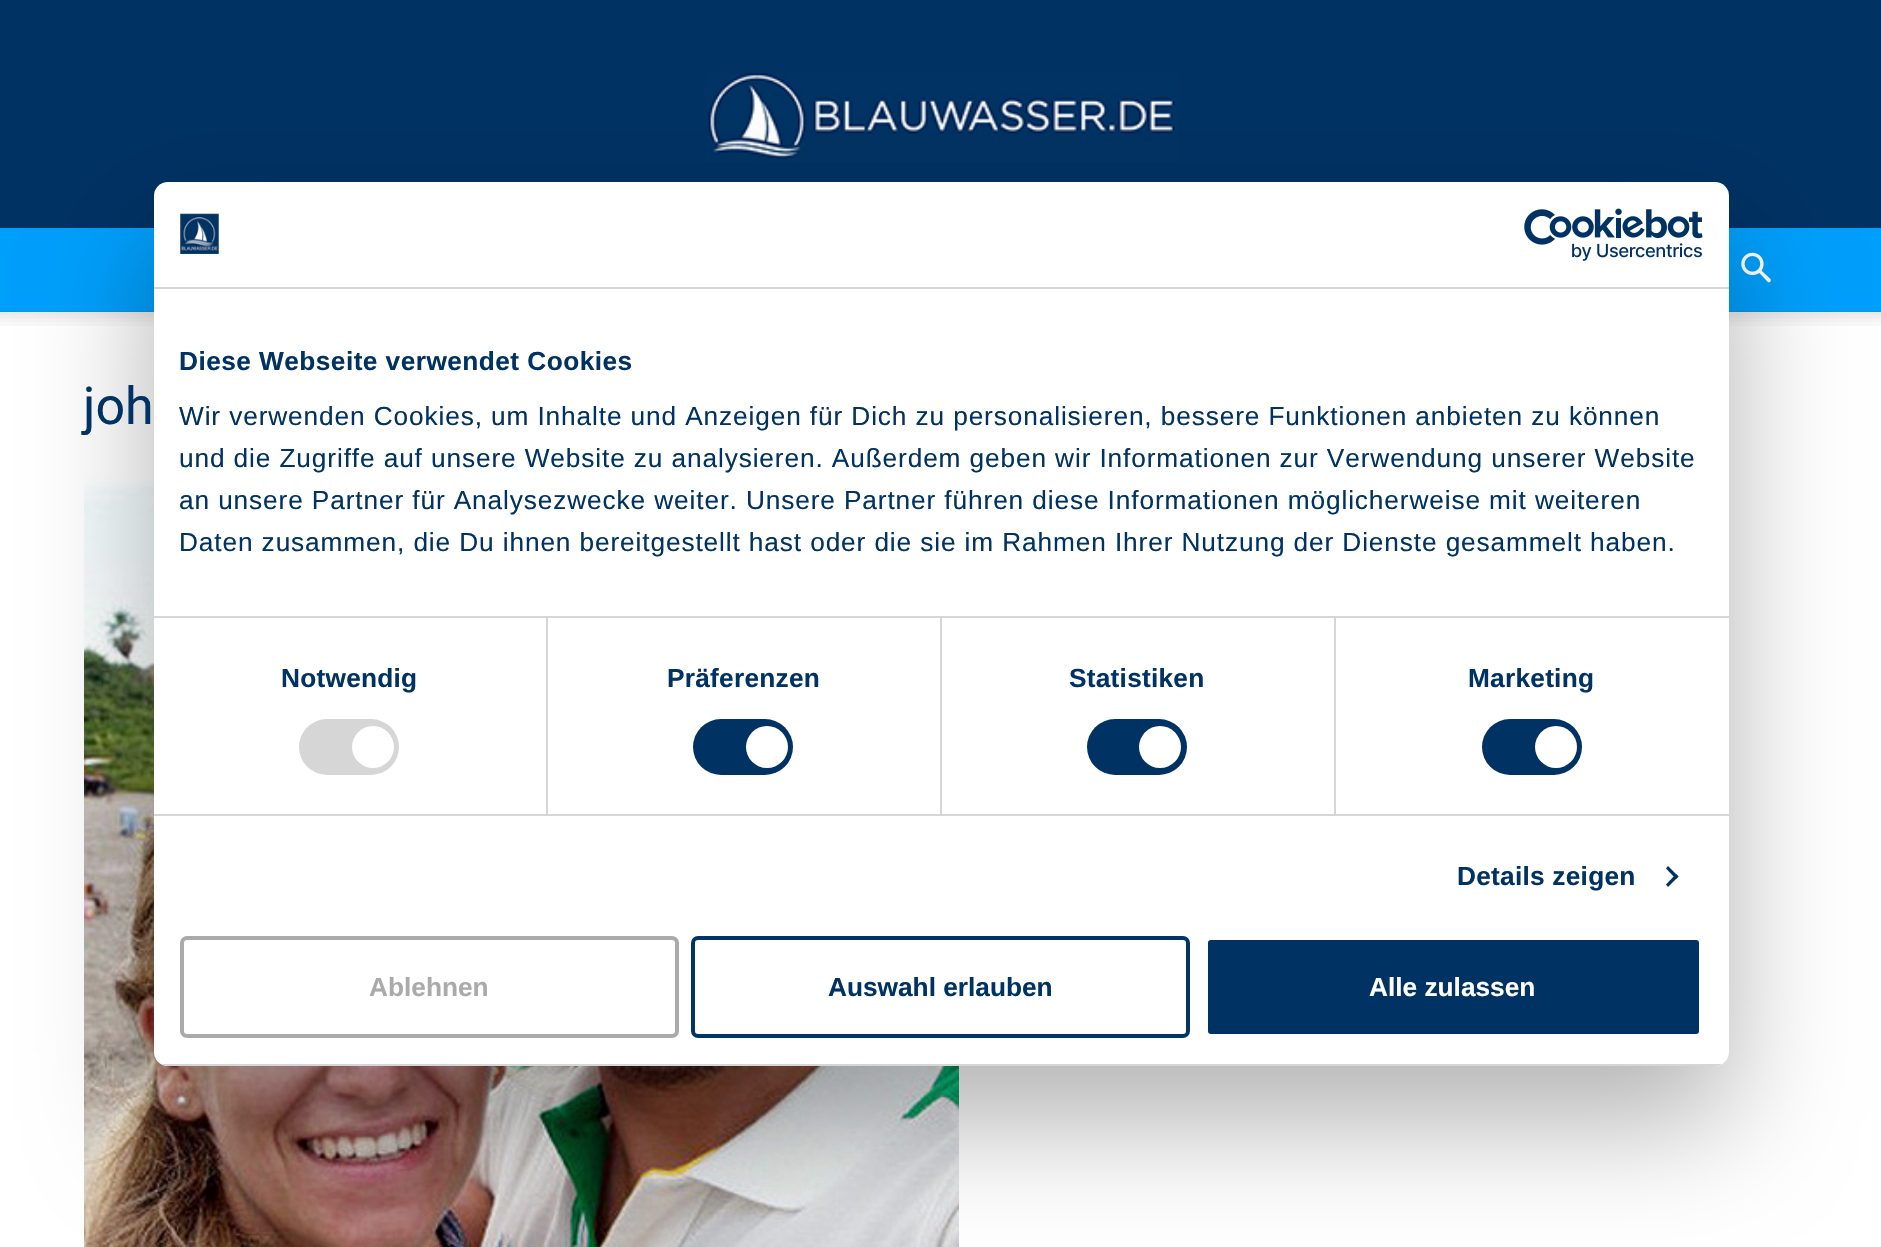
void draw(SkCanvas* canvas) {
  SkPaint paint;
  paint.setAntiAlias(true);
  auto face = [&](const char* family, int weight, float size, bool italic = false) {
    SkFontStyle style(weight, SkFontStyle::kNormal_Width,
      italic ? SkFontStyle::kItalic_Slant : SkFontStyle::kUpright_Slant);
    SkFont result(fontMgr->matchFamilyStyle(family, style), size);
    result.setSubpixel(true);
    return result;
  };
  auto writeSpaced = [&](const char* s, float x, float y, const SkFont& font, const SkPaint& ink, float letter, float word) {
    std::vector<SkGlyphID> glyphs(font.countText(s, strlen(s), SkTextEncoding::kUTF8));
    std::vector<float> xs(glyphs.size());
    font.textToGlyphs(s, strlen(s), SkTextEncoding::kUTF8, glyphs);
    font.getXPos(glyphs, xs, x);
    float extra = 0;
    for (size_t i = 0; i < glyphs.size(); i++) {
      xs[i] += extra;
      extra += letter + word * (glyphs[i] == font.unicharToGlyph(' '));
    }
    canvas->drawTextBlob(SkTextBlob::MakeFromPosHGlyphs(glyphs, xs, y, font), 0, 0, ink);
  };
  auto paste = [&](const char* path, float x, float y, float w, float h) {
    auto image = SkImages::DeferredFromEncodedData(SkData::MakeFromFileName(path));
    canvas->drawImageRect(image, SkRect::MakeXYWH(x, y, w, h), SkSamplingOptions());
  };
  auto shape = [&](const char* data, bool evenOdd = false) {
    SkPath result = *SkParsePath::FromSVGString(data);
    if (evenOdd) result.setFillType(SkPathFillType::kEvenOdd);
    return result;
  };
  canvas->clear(0xffffffff);
  paint.setColor(0xff003264);
  canvas->drawRect(SkRect::MakeXYWH(0, 0, 1881, 228), paint);
  paste("img/1.png", 706, 73, 472, 90);
  paint.setColor(0xff009ffc);
  canvas->drawRect(SkRect::MakeXYWH(0, 228, 1881, 84), paint);
  paste("img/2.png", 1741, 252, 30, 31);
  paste("img/3.png", 0, 311, 1881, 15);
  paste("img/4.png", 84, 472, 875, 775);
  paint.setColor(0x4d000000);
  paint.setMaskFilter(SkMaskFilter::MakeBlur(kNormal_SkBlurStyle, 59.5f));
  canvas->drawRoundRect(SkRect::MakeXYWH(154, 238, 1575, 884), 14, 14, paint);
  paint.setMaskFilter(nullptr);
  paint.setColor(0xffffffff);
  canvas->drawRoundRect(SkRect::MakeXYWH(154, 182, 1575, 884), 14, 14, paint);
  paint.setColor(0xffd6d6d6);
  canvas->drawRect(SkRect::MakeXYWH(154, 287, 1575, 2), paint);
  paste("img/5.png", 180, 213, 39, 41);
  paste("img/6.png", 1524, 208, 179, 53);
  {
    const struct { float x, y, w, h; SkColor color; } items[] = {
      {154, 616, 1575, 2, 0xffd6d6d6},
      {154, 814, 1575, 2, 0xffd6d6d6},
      {546, 618, 2, 196, 0xffd6d6d6},
    };
    for (auto [x, y, w, h, color] : items) {
      paint.setColor(color);
      canvas->drawRect(SkRect::MakeXYWH(x, y, w, h), paint);
    }
  }
  canvas->drawRoundRect(SkRect::MakeXYWH(299, 719, 100, 56), 28, 28, paint);
  paint.setColor(0xffffffff);
  canvas->drawCircle(373, 747, 21, paint);
  paint.setColor(0xffd6d6d6);
  canvas->drawRect(SkRect::MakeXYWH(940, 618, 2, 196), paint);
  paint.setColor(0xff003264);
  canvas->drawRoundRect(SkRect::MakeXYWH(693, 719, 100, 56), 28, 28, paint);
  paint.setColor(0xffffffff);
  canvas->drawCircle(767, 747, 21, paint);
  paint.setColor(0xffd6d6d6);
  canvas->drawRect(SkRect::MakeXYWH(1334, 618, 2, 196), paint);
  paint.setColor(0xff003264);
  canvas->drawRoundRect(SkRect::MakeXYWH(1087, 719, 100, 56), 28, 28, paint);
  paint.setColor(0xffffffff);
  canvas->drawCircle(1160, 747, 21, paint);
  paint.setColor(0xff003264);
  canvas->drawRoundRect(SkRect::MakeXYWH(1482, 719, 100, 56), 28, 28, paint);
  paint.setColor(0xffffffff);
  canvas->drawCircle(1556, 747, 21, paint);
  paint.setColor(0xff003264);
  canvas->drawPath(shape("M1668 866L1678.5 876.5L1676 879L1666 868.5Z"), paint);
  canvas->drawPath(shape("M1676 874L1678.5 876.5L1668 887L1666 884.5Z"), paint);
  canvas->save();
  canvas->clipPath(shape("M168 182H1715C1722.5 182 1729 188.5 1729 196V1052C1729 1059.5 1722.5 1066 1715 1066H168C160.5 1066 154 1059.5 154 1052V196C154 188.5 160.5 182 168 182Z"), true);
  paint.setColor(0xffd6d6d6);
  canvas->drawRect(SkRect::MakeXYWH(154, 1064, 1575, 2), paint);
  canvas->restore();
  paint.setStroke(true);
  paint.setStrokeWidth(4);
  paint.setColor(0xffaaaaaa);
  canvas->drawRoundRect(SkRect::MakeXYWH(182, 938, 495, 98), 5, 5, paint);
  paint.setColor(0xff003564);
  canvas->drawRoundRect(SkRect::MakeXYWH(693, 938, 495, 98), 5, 5, paint);
  paint.setStroke(false);
  paint.setColor(0xff003264);
  canvas->drawRoundRect(SkRect::MakeXYWH(1206, 938, 495, 98), 5, 5, paint);
  paint.setStroke(true);
  paint.setColor(0xffffffff);
  canvas->drawRoundRect(SkRect::MakeXYWH(1206, 938, 495, 98), 5, 5, paint);
  auto f0 = face("Roboto", 400, 52);
  paint.setStroke(false);
  paint.setColor(0xff003264);
  canvas->drawString("joh", 83, 424, f0, paint);
  auto f1 = face("Liberation Sans", 700, 26.25f);
  writeSpaced("Diese Webseite verwendet Cookies", 179, 370, f1, paint, 0.45f, 0);
  auto f2 = face("Liberation Sans", 400, 26.25f);
  {
    const struct { const char* s; float x, y; } items[] = {
      {"Wir verwenden Cookies, um Inhalte und Anzeigen für Dich zu personalisieren, bessere Funktionen anbieten zu können", 179, 425},
      {"und die Zugriffe auf unsere Website zu analysieren. Außerdem geben wir Informationen zur Verwendung unserer Website", 179, 467},
      {"an unsere Partner für Analysezwecke weiter. Unsere Partner führen diese Informationen möglicherweise mit weiteren", 179, 509},
      {"Daten zusammen, die Du ihnen bereitgestellt hast oder die sie im Rahmen Ihrer Nutzung der Dienste gesammelt haben.", 179, 551},
    };
    for (auto [s, x, y] : items) {
      writeSpaced(s, x, y, f2, paint, 0.88f, 0);
    }
  }
  {
    const struct { const char* s; float x, y; } items[] = {
      {"Notwendig", 281, 687},
      {"Präferenzen", 667, 687},
      {"Statistiken", 1069, 687},
      {"Marketing", 1468, 687},
      {"Details zeigen", 1457, 885},
    };
    for (auto [s, x, y] : items) {
      writeSpaced(s, x, y, f1, paint, 0.25f, 0);
    }
  }
  paint.setColor(0xffaaaaaa);
  canvas->drawString("Ablehnen", 369, 996, f1, paint);
  paint.setColor(0xff003264);
  canvas->drawString("Auswahl erlauben", 828, 996, f1, paint);
  paint.setColor(0xffffffff);
  canvas->drawString("Alle zulassen", 1369, 996, f1, paint);
}
